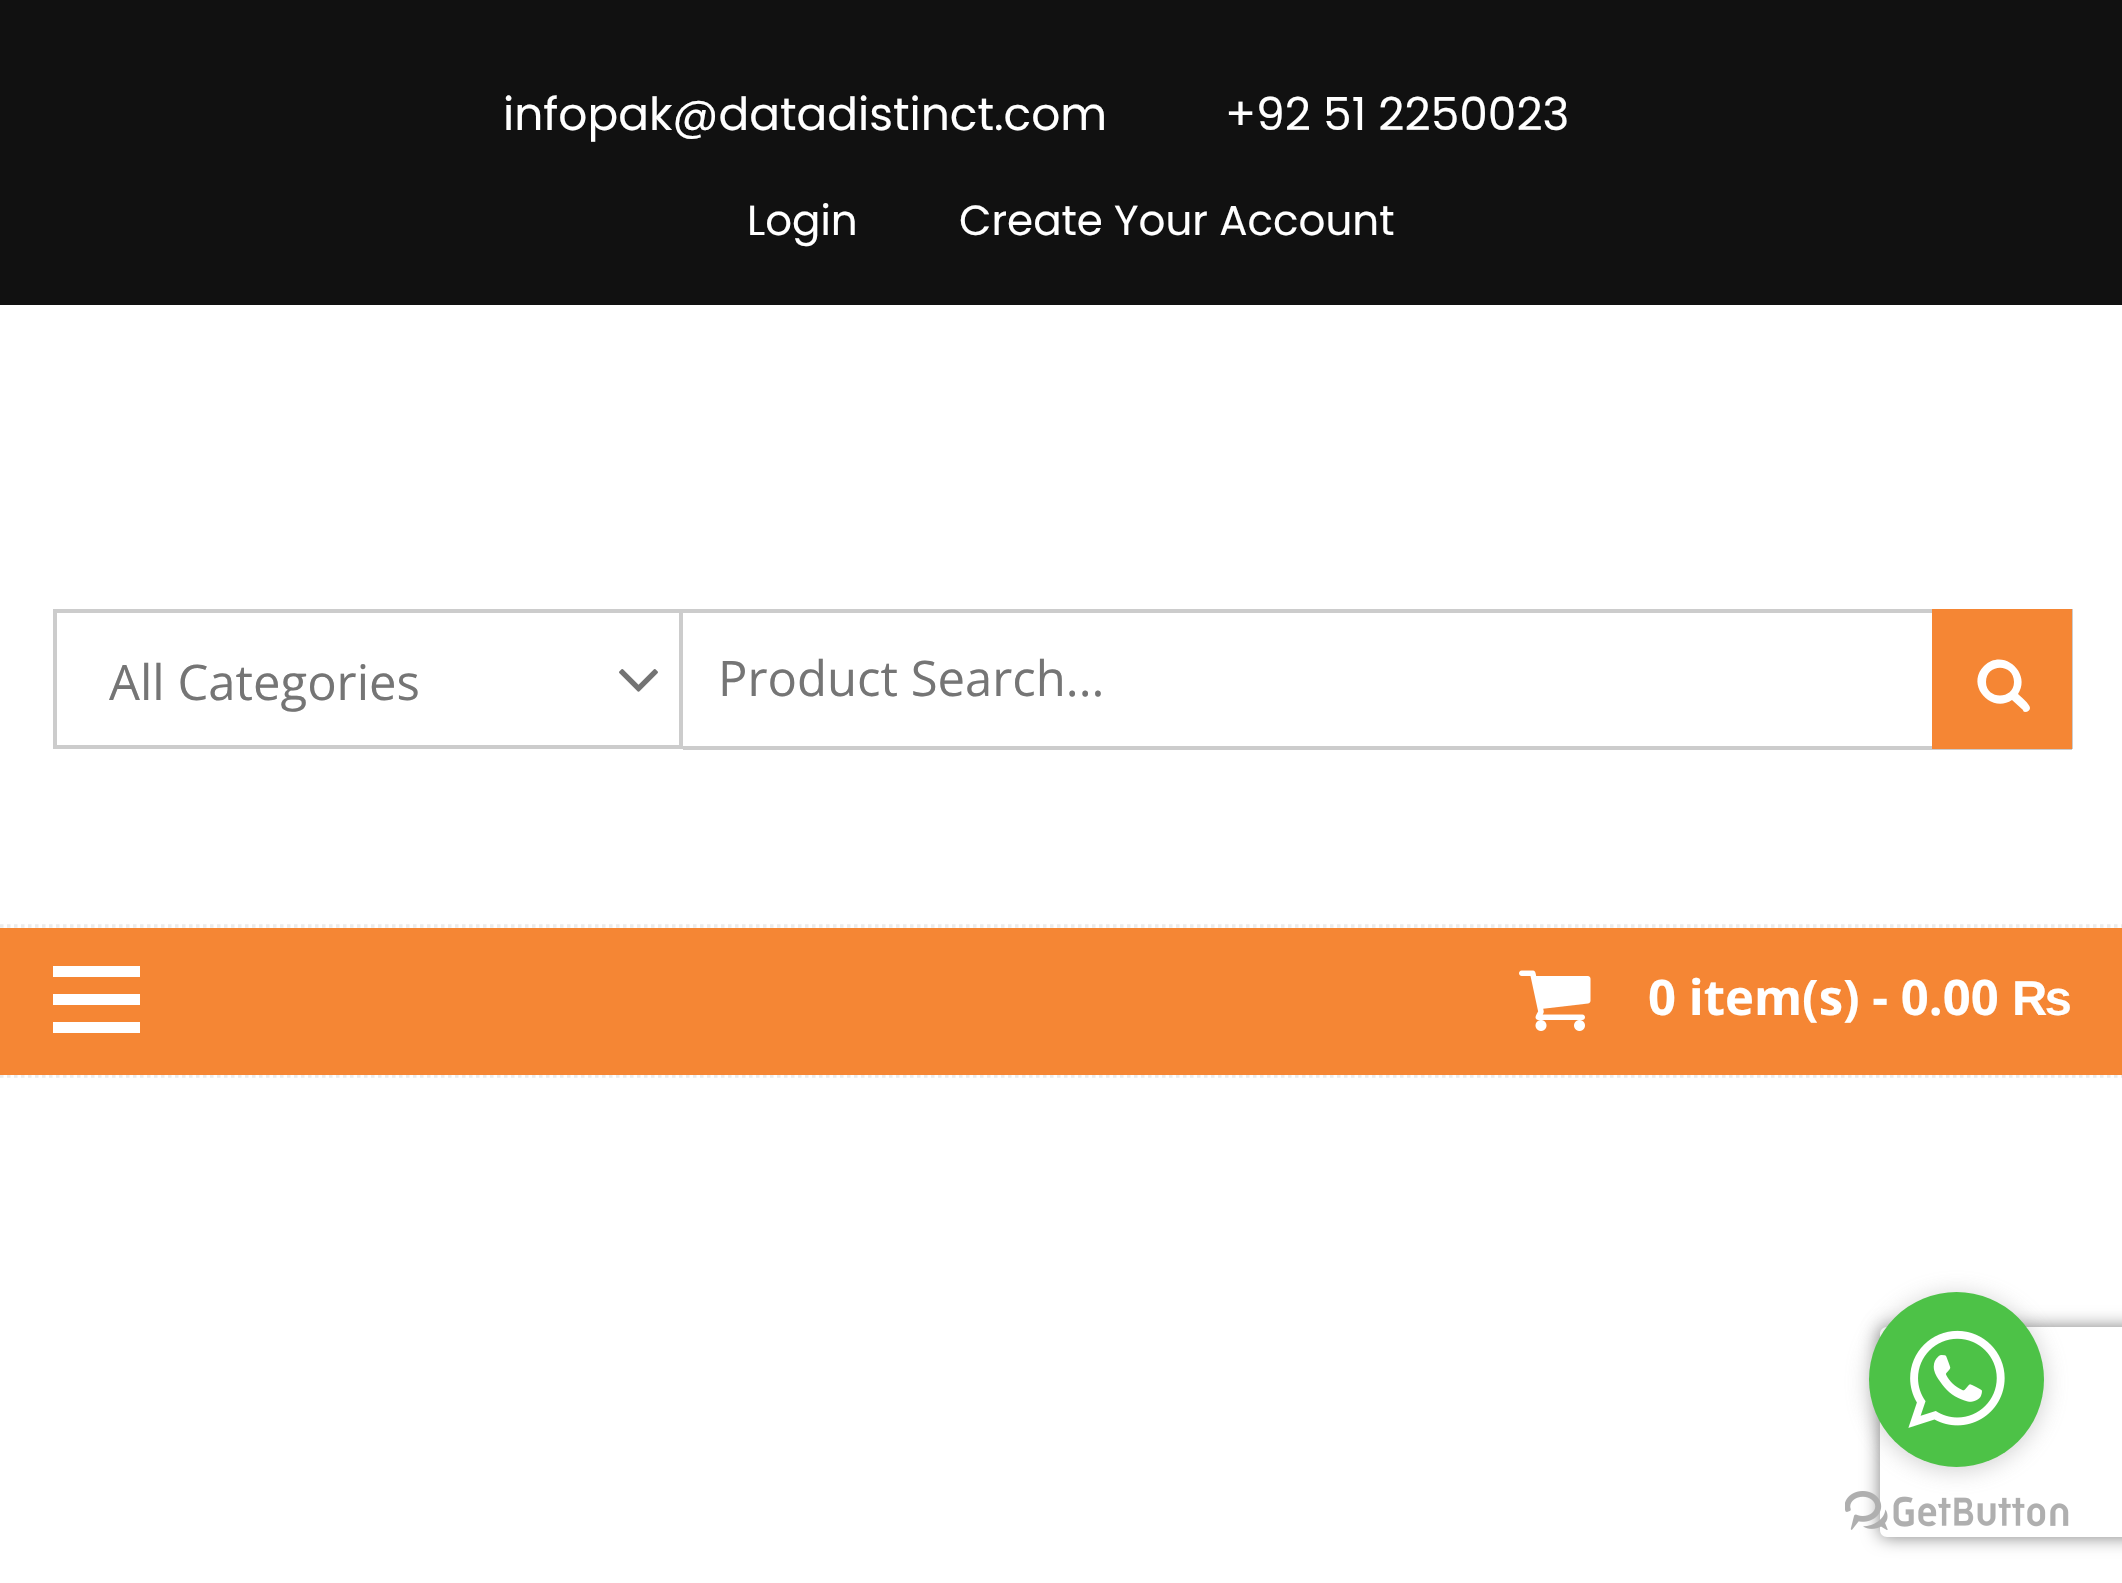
void draw(SkCanvas* canvas) {
  SkPaint paint;
  paint.setAntiAlias(true);
  auto face = [&](const char* family, int weight, float size, bool italic = false) {
    SkFontStyle style(weight, SkFontStyle::kNormal_Width,
      italic ? SkFontStyle::kItalic_Slant : SkFontStyle::kUpright_Slant);
    SkFont result(fontMgr->matchFamilyStyle(family, style), size);
    result.setSubpixel(true);
    return result;
  };
  auto paste = [&](const char* path, float x, float y, float w, float h) {
    auto image = SkImages::DeferredFromEncodedData(SkData::MakeFromFileName(path));
    canvas->drawImageRect(image, SkRect::MakeXYWH(x, y, w, h), SkSamplingOptions());
  };
  auto shape = [&](const char* data, bool evenOdd = false) {
    SkPath result = *SkParsePath::FromSVGString(data);
    if (evenOdd) result.setFillType(SkPathFillType::kEvenOdd);
    return result;
  };
  canvas->clear(0xffffffff);
  paint.setColor(0xff111111);
  canvas->drawRect(SkRect::MakeXYWH(0, 0, 2122, 305), paint);
  paste("img/1.png", 619, 669, 39, 23);
  paint.setStroke(true);
  paint.setStrokeWidth(4);
  paint.setColor(0xffcccccc);
  canvas->drawRect(SkRect::MakeXYWH(55, 611, 626, 136), paint);
  paint.setStroke(false);
  {
    const struct { float x, y, w, h; SkColor color; } items[] = {
      {683, 609, 1249, 4, 0xffcccccc},
      {2072, 609, 1, 140, 0xffcccccc},
      {683, 746, 1389, 4, 0xffcccccc},
      {1932, 609, 140, 140, 0xfff58634},
    };
    for (auto [x, y, w, h, color] : items) {
      paint.setColor(color);
      canvas->drawRect(SkRect::MakeXYWH(x, y, w, h), paint);
    }
  }
  paint.setColor(0xffffffff);
  canvas->drawPath(shape("M2014 682C2014 700 1986 700 1986 682C1986 663 2014 663 2014 682ZM2030 708C2030 704 2020 696 2018 694C2032 673 2003 647 1984 666C1965 685 1991 714 2012 700L2023 710C2023 711 2024 712 2025 712C2028 712 2030 710 2030 708Z"), paint);
  paint.setStroke(true);
  paint.setStrokeWidth(3.5f);
  paint.setColor(0xffececec);
  paint.setPathEffect(SkDashPathEffect::Make({{3.5f, 3.5f}}, 0));
  canvas->drawPath(shape("M0 926H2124.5"), paint);
  paint.setPathEffect(nullptr);
  paint.setPathEffect(SkDashPathEffect::Make({{3.5f, 3.5f}}, 0));
  canvas->drawPath(shape("M0 1076H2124.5"), paint);
  paint.setPathEffect(nullptr);
  paint.setStroke(false);
  {
    const struct { float x, y, w, h; SkColor color; } items[] = {
      {0, 928, 2122, 147, 0xfff58634},
      {53, 966, 87, 11, 0xffffffff},
      {53, 994, 87, 11, 0xffffffff},
      {53, 1022, 87, 11, 0xffffffff},
    };
    for (auto [x, y, w, h, color] : items) {
      paint.setColor(color);
      canvas->drawRect(SkRect::MakeXYWH(x, y, w, h), paint);
    }
  }
  paste("img/2.png", 1519, 970, 72, 61);
  canvas->save();
  canvas->clipPath(shape("M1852 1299H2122V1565H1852ZM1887 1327H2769C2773 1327 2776 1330 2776 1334V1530C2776 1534 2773 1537 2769 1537H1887C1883 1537 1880 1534 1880 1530V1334C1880 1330 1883 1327 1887 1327Z", true), true);
  paint.setColor(0xff808080);
  paint.setMaskFilter(SkMaskFilter::MakeBlur(kNormal_SkBlurStyle, 9));
  canvas->drawRoundRect(SkRect::MakeXYWH(1880, 1327, 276, 210), 7, 7, paint);
  paint.setMaskFilter(nullptr);
  canvas->restore();
  paste("img/4.png", 1845, 1491, 224, 39);
  paint.setColor(0x66888888);
  paint.setMaskFilter(SkMaskFilter::MakeBlur(kNormal_SkBlurStyle, 12));
  canvas->drawRoundRect(SkRect::MakeXYWH(1869, 1295, 175, 175), 87.5f, 87.5f, paint);
  paint.setMaskFilter(nullptr);
  paint.setColor(0xff4dc247);
  canvas->drawCircle(1956.5f, 1379.5f, 87.5f, paint);
  paste("img/3.png", 1908, 1330, 97, 98);
  auto f0 = face("Poppins", 400, 45.5f);
  paint.setColor(0xffffffff);
  canvas->drawString("infopak@datadistinct.com", 503, 130, f0, paint);
  canvas->drawString("+92 51 2250023", 1225, 130, f0, paint);
  auto f1 = face("Poppins", 400, 42);
  canvas->drawString("Login", 747, 235, f1, paint);
  canvas->drawString("Create Your Account", 959, 235, f1, paint);
  auto f2 = face("Open Sans", 400, 49);
  paint.setColor(0xff757575);
  canvas->drawString("All Categories", 109, 700, f2, paint);
  canvas->drawString("Product Search...", 718, 696, f2, paint);
  auto f3 = face("Open Sans", 700, 49);
  paint.setColor(0xffffffff);
  canvas->drawString("0 item(s) - 0.00", 1648, 1015, f3, paint);
  auto f4 = face("Liberation Sans", 700, 49);
  canvas->drawString("₨", 2012, 1015, f4, paint);
}
